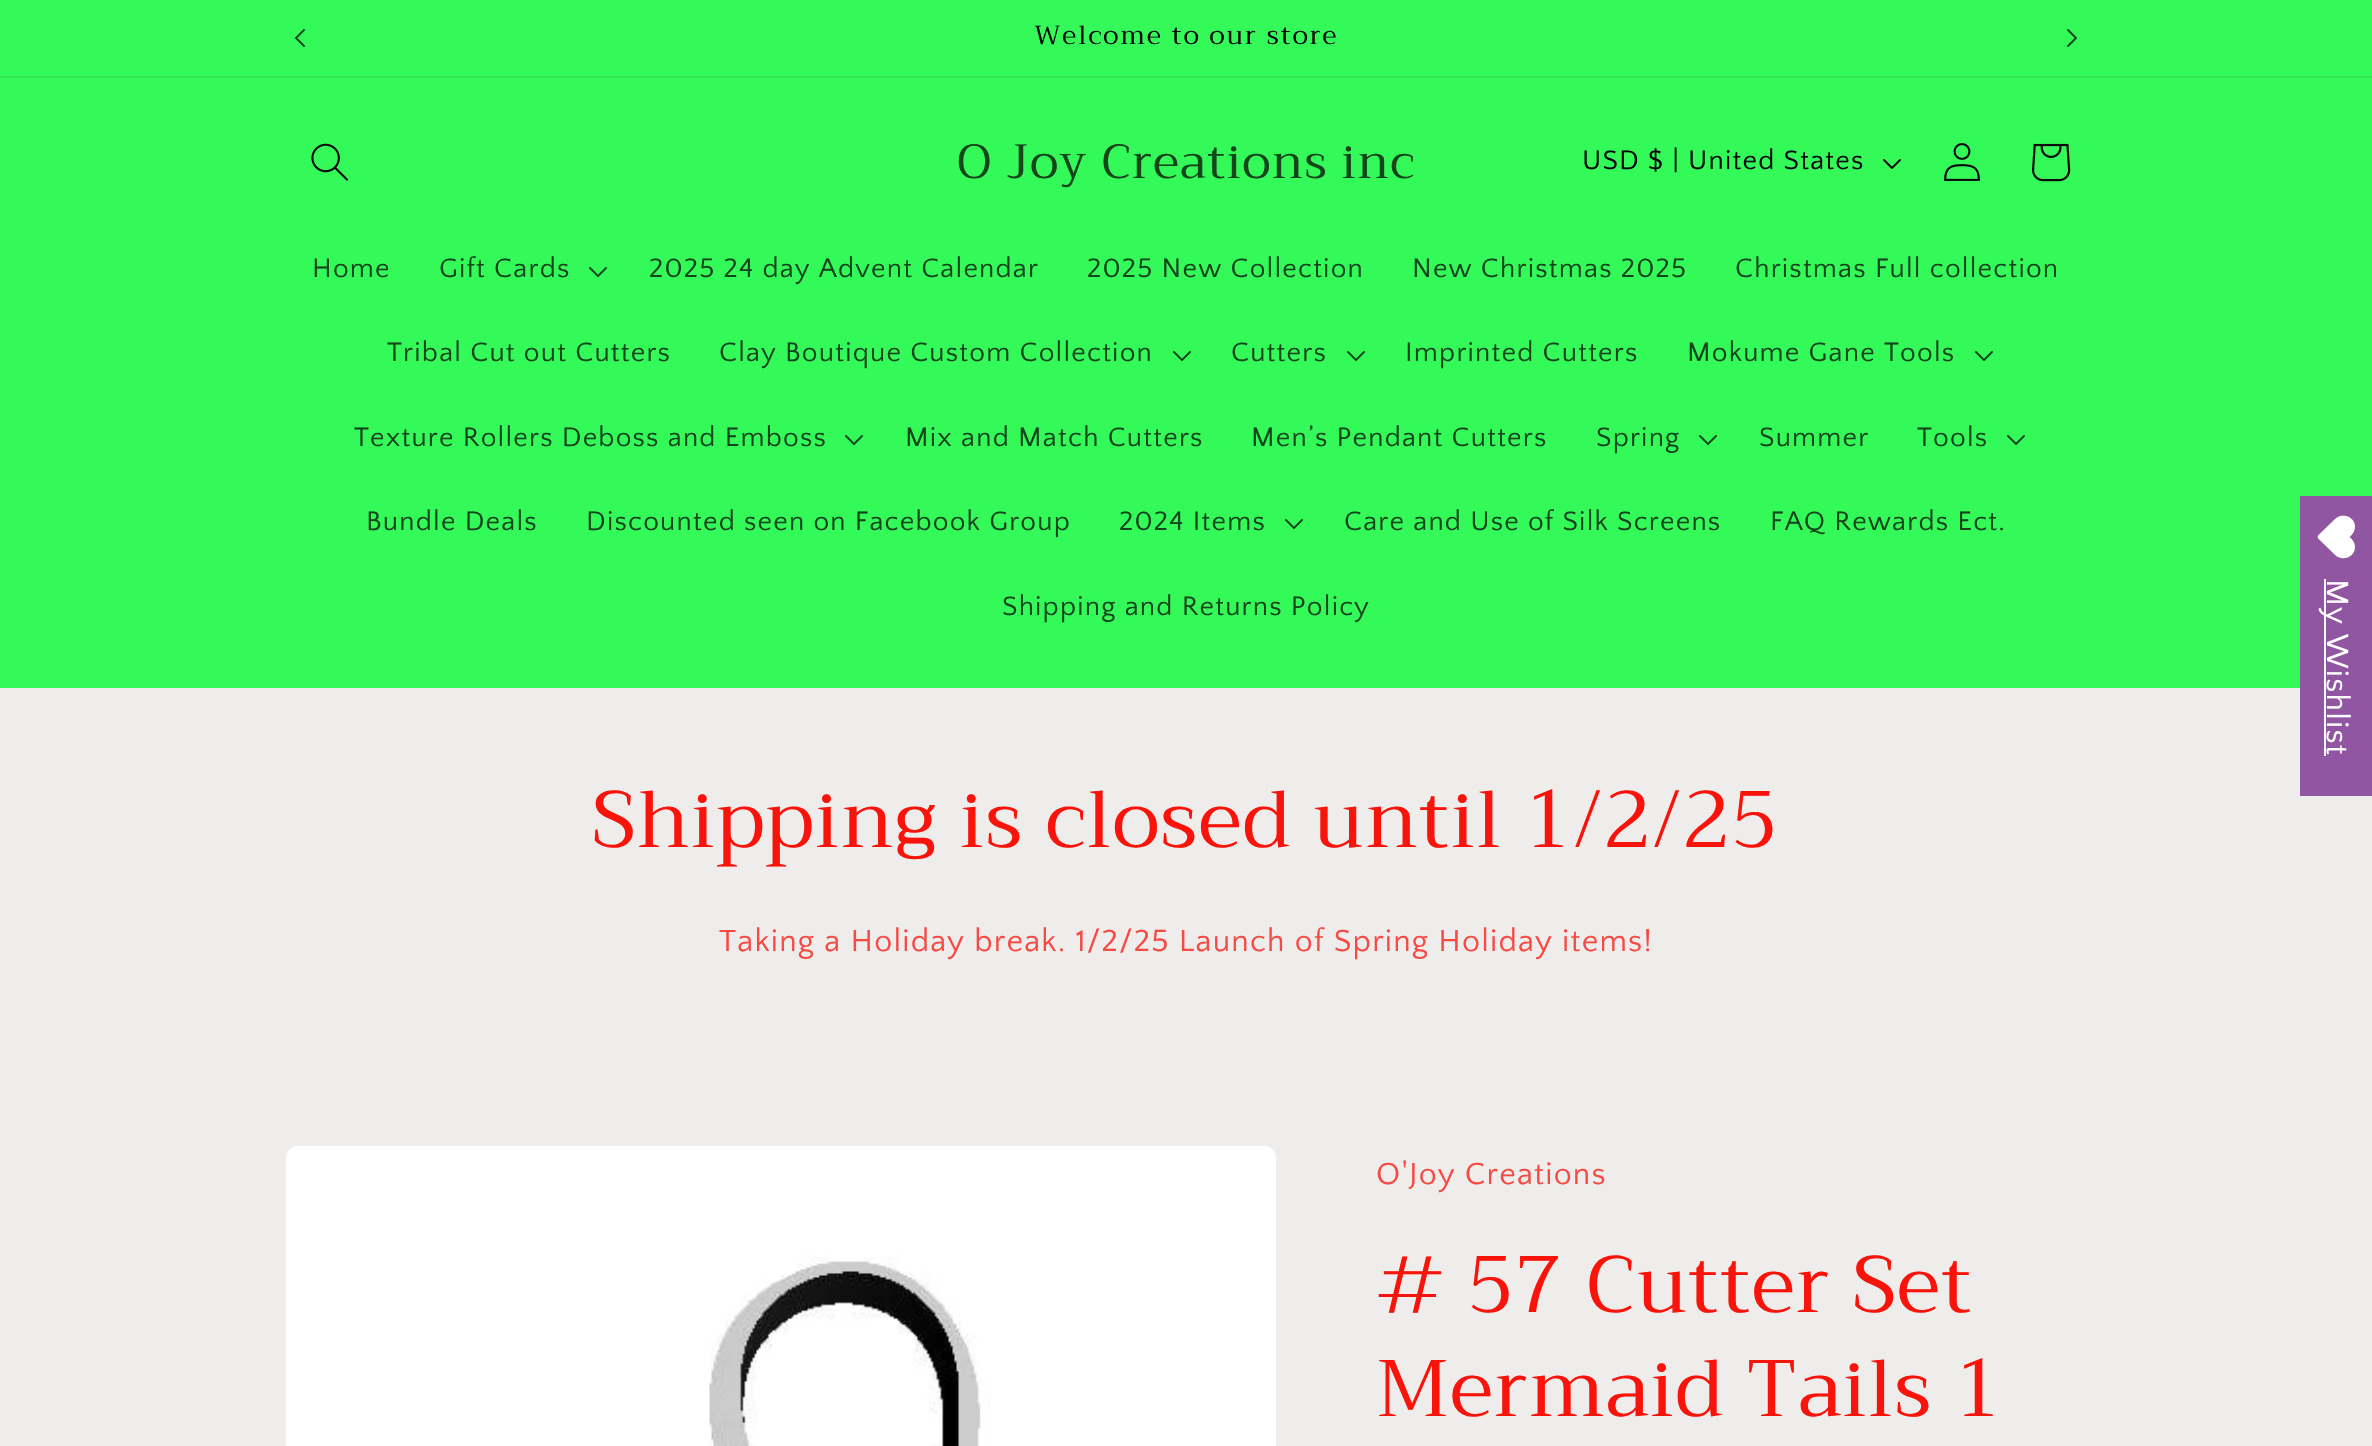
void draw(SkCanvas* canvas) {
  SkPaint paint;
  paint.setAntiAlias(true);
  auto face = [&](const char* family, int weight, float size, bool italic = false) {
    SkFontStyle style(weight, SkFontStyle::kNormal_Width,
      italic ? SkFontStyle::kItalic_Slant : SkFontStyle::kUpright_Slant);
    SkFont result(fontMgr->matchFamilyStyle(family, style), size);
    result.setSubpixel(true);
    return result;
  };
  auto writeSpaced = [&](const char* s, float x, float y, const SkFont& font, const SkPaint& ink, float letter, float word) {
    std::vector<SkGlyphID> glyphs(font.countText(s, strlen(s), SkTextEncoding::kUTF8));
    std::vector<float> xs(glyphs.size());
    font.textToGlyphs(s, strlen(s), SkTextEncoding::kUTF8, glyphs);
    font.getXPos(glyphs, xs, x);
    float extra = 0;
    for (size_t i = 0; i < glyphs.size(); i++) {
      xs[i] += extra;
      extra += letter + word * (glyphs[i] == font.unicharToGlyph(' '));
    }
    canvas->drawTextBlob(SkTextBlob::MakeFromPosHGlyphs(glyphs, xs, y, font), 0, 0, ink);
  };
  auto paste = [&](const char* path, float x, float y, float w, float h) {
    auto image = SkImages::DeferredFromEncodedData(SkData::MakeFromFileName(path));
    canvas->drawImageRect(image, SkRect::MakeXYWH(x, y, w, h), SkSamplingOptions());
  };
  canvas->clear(0xffefecec);
  paint.setColor(0xff34fa59);
  canvas->drawRect(SkRect::MakeXYWH(0, 0, 2372, 76), paint);
  paint.setColor(0xff31e753);
  canvas->drawRect(SkRect::MakeXYWH(0, 76, 2372, 2), paint);
  paste("img/1.png", 295, 29, 10, 18);
  paste("img/2.png", 2067, 29, 10, 18);
  paint.setColor(0xff34fa59);
  canvas->drawRect(SkRect::MakeXYWH(0, 78, 2372, 610), paint);
  paste("img/3.png", 311, 143, 37, 38);
  paste("img/4.png", 1883, 159, 18, 10);
  paste("img/5.png", 1944, 143, 36, 38);
  paste("img/6.png", 2032, 143, 39, 39);
  paste("img/7.png", 589, 267, 18, 10);
  paste("img/7.png", 1173, 351, 18, 10);
  paste("img/7.png", 1347, 351, 18, 10);
  paste("img/7.png", 1975, 351, 18, 10);
  paste("img/7.png", 845, 435, 18, 10);
  paste("img/7.png", 1699, 435, 18, 10);
  paste("img/7.png", 2007, 435, 18, 10);
  paste("img/7.png", 1285, 519, 18, 10);
  paint.setColor(0xff9056a2);
  canvas->drawRect(SkRect::MakeXYWH(2300, 496, 72, 300), paint);
  paste("img/8.png", 2317, 515, 38, 44);
  paint.setColor(0xffffffff);
  canvas->drawRect(SkRect::MakeXYWH(2324, 579, 2, 177), paint);
  paste("img/9.png", 286, 1146, 990, 300);
  auto f0 = face("Trirong", 400, 26);
  paint.setColor(0xff0a0909);
  writeSpaced("Welcome to our store", 1034, 44, f0, paint, 2, 0);
  auto f1 = face("Trirong", 400, 48);
  paint.setColor(0xff15451d);
  writeSpaced("O Joy Creations inc", 957, 178, f1, paint, 1.2f, 0);
  auto f2 = face("Quattrocento Sans", 400, 28);
  paint.setColor(0xff0a0909);
  writeSpaced("USD $ | United States", 1582, 169, f2, paint, 1.2f, 0);
  paint.setColor(0xff15451d);
  {
    const struct { const char* s; float x, y; } items[] = {
      {"Home", 312, 277},
      {"Gift Cards", 439, 277},
      {"2025 24 day Advent Calendar", 649, 277},
      {"2025 New Collection", 1087, 277},
      {"New Christmas 2025", 1412, 277},
      {"Christmas Full collection", 1735, 277},
      {"Tribal Cut out Cutters", 387, 361},
      {"Clay Boutique Custom Collection", 719, 361},
      {"Cutters", 1231, 361},
      {"Imprinted Cutters", 1405, 361},
      {"Mokume Gane Tools", 1687, 361},
      {"Texture Rollers Deboss and Emboss", 354, 446},
      {"Mix and Match Cutters", 905, 446},
      {"Men’s Pendant Cutters", 1251, 446},
      {"Spring", 1596, 446},
      {"Summer", 1759, 446},
      {"Tools", 1917, 446},
      {"Bundle Deals", 366, 530},
      {"Discounted seen on Facebook Group", 586, 530},
      {"2024 Items", 1119, 530},
      {"Care and Use of Silk Screens", 1344, 530},
      {"FAQ Rewards Ect.", 1770, 530},
      {"Shipping and Returns Policy", 1002, 615},
    };
    for (auto [s, x, y] : items) {
      writeSpaced(s, x, y, f2, paint, 1.2f, 0);
    }
  }
  auto f3 = face("Quattrocento Sans", 400, 32);
  paint.setColor(0xffffffff);
  canvas->save();
  canvas->rotate(90, 2327, 579);
  writeSpaced("My Wishlist", 2327, 579, f3, paint, 1.2f, 0);
  canvas->restore();
  auto f4 = face("Trirong", 400, 80);
  paint.setColor(0xfff9140b);
  writeSpaced("Shipping is closed until 1/2/25", 592, 847, f4, paint, 1.2f, 0);
  paint.setColor(0xfff74a43);
  writeSpaced("Taking a Holiday break. 1/2/25 Launch of Spring Holiday items!", 719, 951, f3, paint, 1.2f, 0);
  writeSpaced("O'Joy Creations", 1376, 1184, f3, paint, 1.2f, 0);
  paint.setColor(0xfff9140b);
  writeSpaced("# 57 Cutter Set", 1376, 1312, f4, paint, 1.2f, 0);
  writeSpaced("Mermaid Tails 1", 1376, 1416, f4, paint, 1.2f, 0);
}
